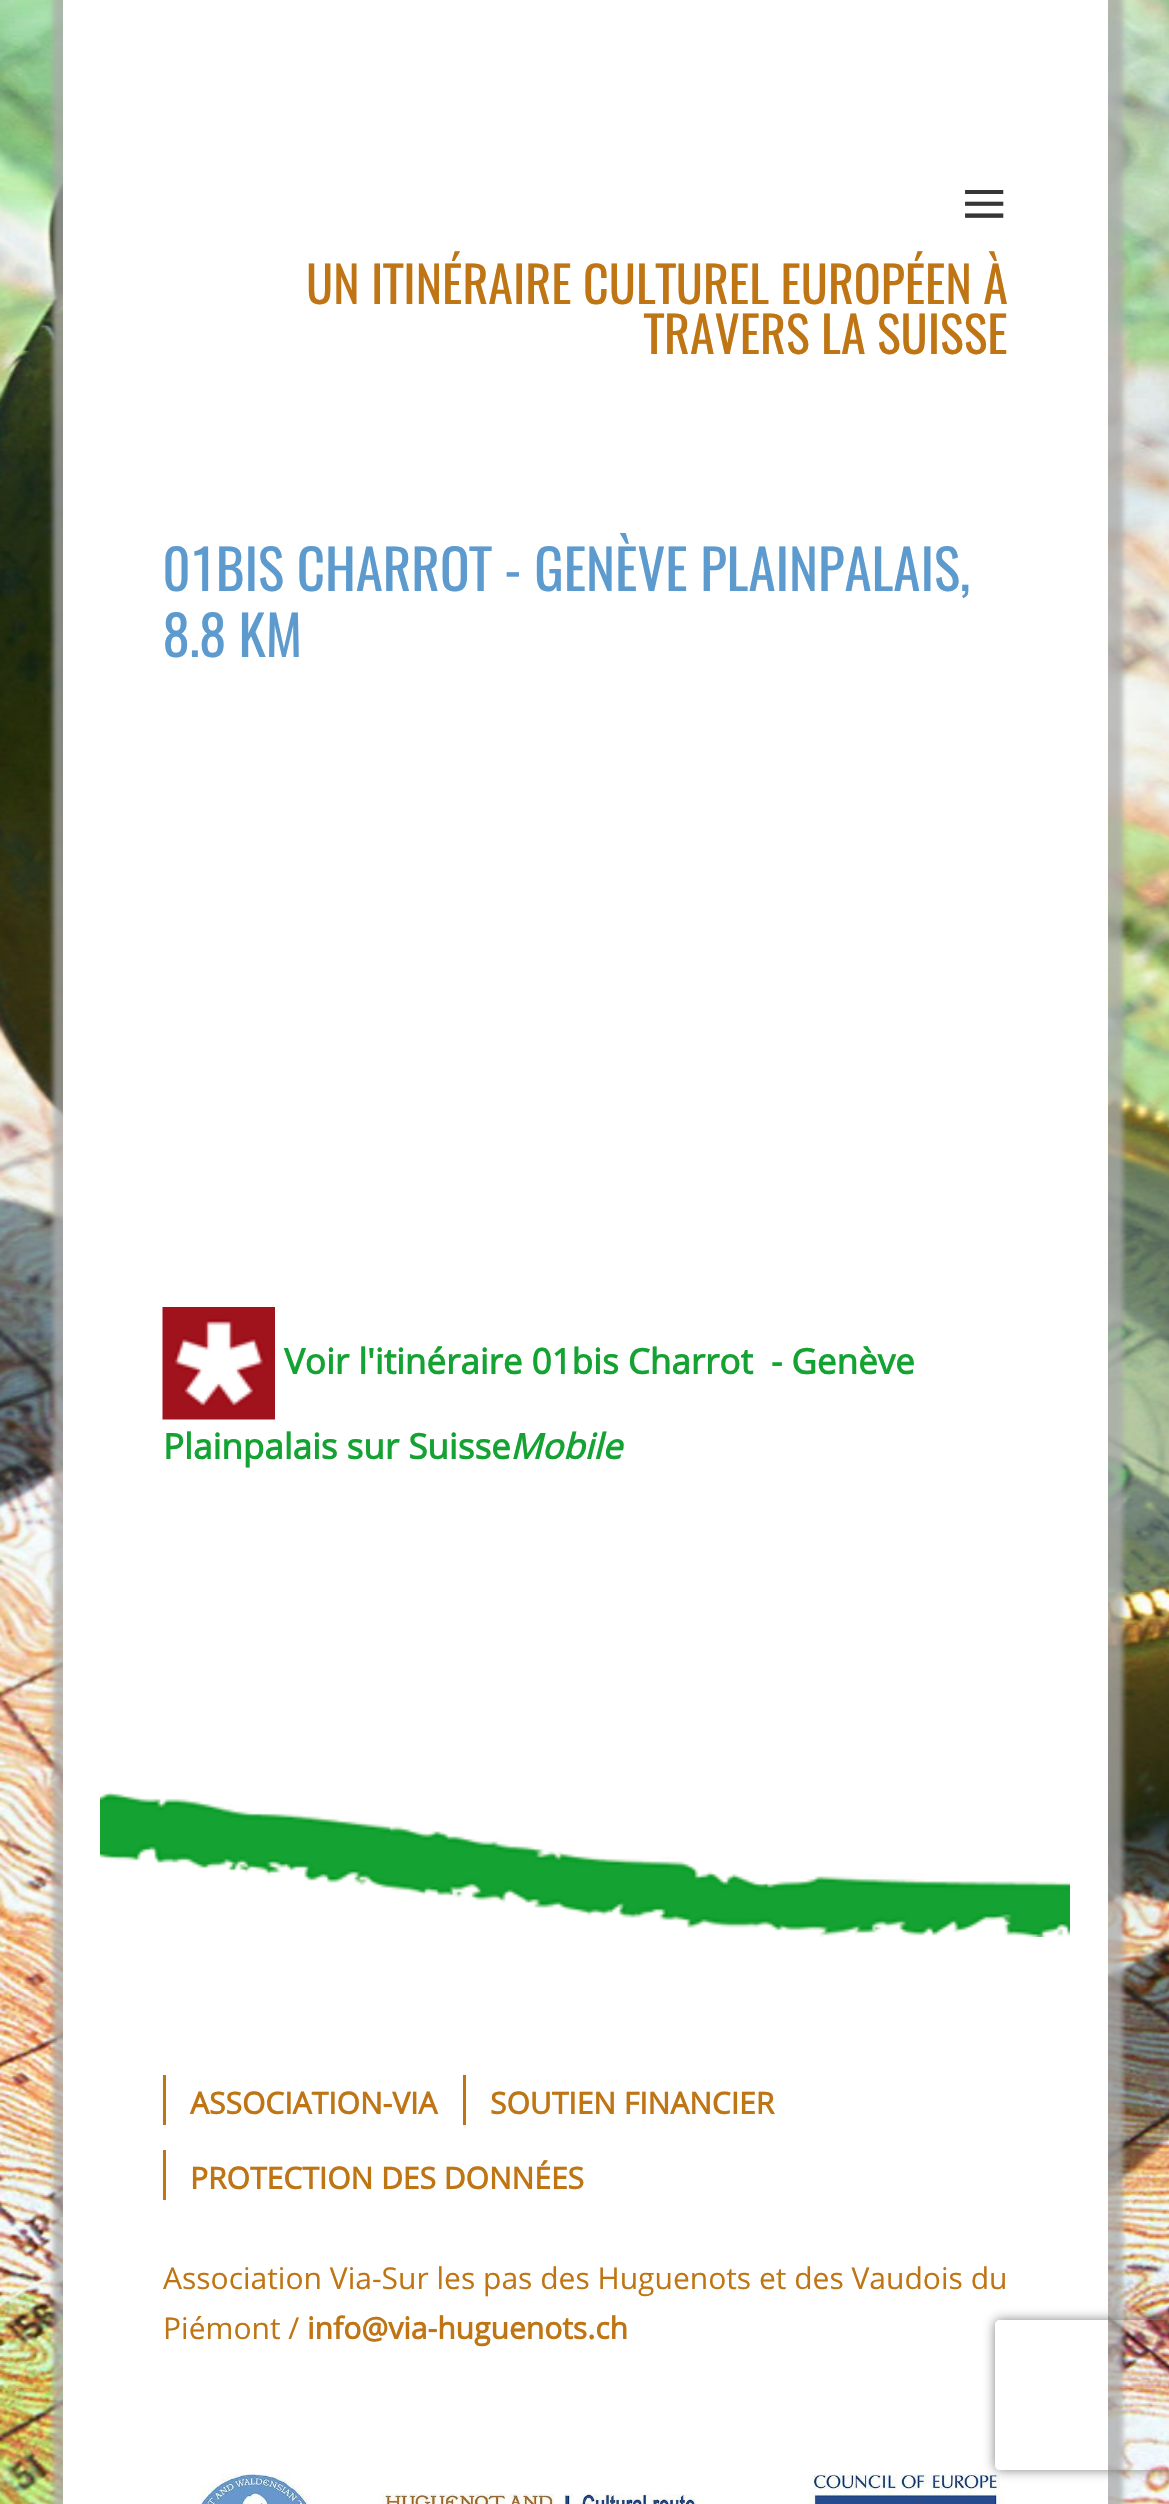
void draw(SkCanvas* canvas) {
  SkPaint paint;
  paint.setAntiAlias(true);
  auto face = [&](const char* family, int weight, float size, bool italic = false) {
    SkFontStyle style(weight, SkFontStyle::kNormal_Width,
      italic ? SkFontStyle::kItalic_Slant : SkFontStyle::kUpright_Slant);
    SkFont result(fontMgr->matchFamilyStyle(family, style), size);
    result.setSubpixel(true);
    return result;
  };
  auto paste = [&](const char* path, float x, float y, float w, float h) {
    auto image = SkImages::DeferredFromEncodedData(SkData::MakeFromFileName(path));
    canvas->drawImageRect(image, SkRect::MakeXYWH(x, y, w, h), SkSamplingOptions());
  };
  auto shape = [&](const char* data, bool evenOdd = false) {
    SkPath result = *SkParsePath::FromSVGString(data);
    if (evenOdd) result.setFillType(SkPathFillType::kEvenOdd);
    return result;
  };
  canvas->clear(0xffffffff);
  paste("img/1.png", 0, 0, 1169, 2504);
  paint.setColor(0xbfaaaaaa);
  paint.setMaskFilter(SkMaskFilter::MakeBlur(kNormal_SkBlurStyle, 2.5f));
  canvas->drawRect(SkRect::MakeXYWH(53, -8, 1070, 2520), paint);
  paint.setMaskFilter(nullptr);
  paint.setColor(0xffffffff);
  canvas->drawRect(SkRect::MakeXYWH(63, 0, 1045, 2504), paint);
  paste("img/2.png", 162, 1307, 113, 113);
  paste("img/3.png", 100, 1791, 970, 146);
  {
    const struct { float x, y, w, h; SkColor color; } items[] = {
      {163, 2075, 3, 50, 0xffbf7514},
      {463, 2075, 3, 50, 0xffbf7514},
      {163, 2150, 3, 50, 0xffbf7514},
    };
    for (auto [x, y, w, h, color] : items) {
      paint.setColor(color);
      canvas->drawRect(SkRect::MakeXYWH(x, y, w, h), paint);
    }
  }
  paste("img/4.png", 201, 2474, 803, 30);
  canvas->save();
  canvas->clipPath(shape("M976 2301H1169V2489H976ZM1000 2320H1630C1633 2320 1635 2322 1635 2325V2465C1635 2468 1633 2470 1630 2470H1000C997 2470 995 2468 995 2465V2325C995 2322 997 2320 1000 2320Z", true), true);
  paint.setColor(0xff808080);
  paint.setMaskFilter(SkMaskFilter::MakeBlur(kNormal_SkBlurStyle, 6));
  canvas->drawRoundRect(SkRect::MakeXYWH(995, 2320, 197, 150), 5, 5, paint);
  paint.setMaskFilter(nullptr);
  canvas->restore();
  auto f0 = face("Liberation Serif", 400, 82);
  paint.setColor(0xff363636);
  canvas->drawString("≡", 961, 231, f0, paint);
  auto f1 = face("Oswald", 400, 50);
  paint.setColor(0xffbf7514);
  canvas->drawString("UN ITINÉRAIRE CULTUREL EUROPÉEN À", 306, 304, f1, paint);
  canvas->drawString("TRAVERS LA SUISSE", 644, 354, f1, paint);
  auto f2 = face("Oswald", 400, 55);
  paint.setColor(0xff5d9ace);
  canvas->drawString("01BIS CHARROT - GENÈVE PLAINPALAIS,", 163, 591, f2, paint);
  canvas->drawString("8.8 KM", 163, 657, f2, paint);
  auto f3 = face("Open Sans", 700, 35);
  paint.setColor(0xff14a232);
  canvas->drawString("Voir l'itinéraire 01bis Charrot  - Genève", 284, 1374, f3, paint);
  canvas->drawString("Plainpalais sur Suisse", 163, 1459, f3, paint);
  auto f4 = face("Open Sans", 700, 35, true);
  canvas->drawString("Mobile", 510, 1459, f4, paint);
  auto f5 = face("Open Sans", 700, 30);
  paint.setColor(0xffbf7514);
  {
    const struct { const char* s; float x, y; } items[] = {
      {"ASSOCIATION-VIA", 190, 2114},
      {"SOUTIEN FINANCIER", 490, 2114},
      {"PROTECTION DES DONNÉES", 190, 2189},
    };
    for (auto [s, x, y] : items) {
      canvas->drawString(s, x, y, f5, paint);
    }
  }
  auto f6 = face("Open Sans", 400, 30);
  canvas->drawString("Association Via-Sur les pas des Huguenots et des Vaudois du", 163, 2289, f6, paint);
  canvas->drawString("Piémont /", 163, 2339, f6, paint);
  canvas->drawString("info@via-huguenots.ch", 307, 2339, f5, paint);
}
